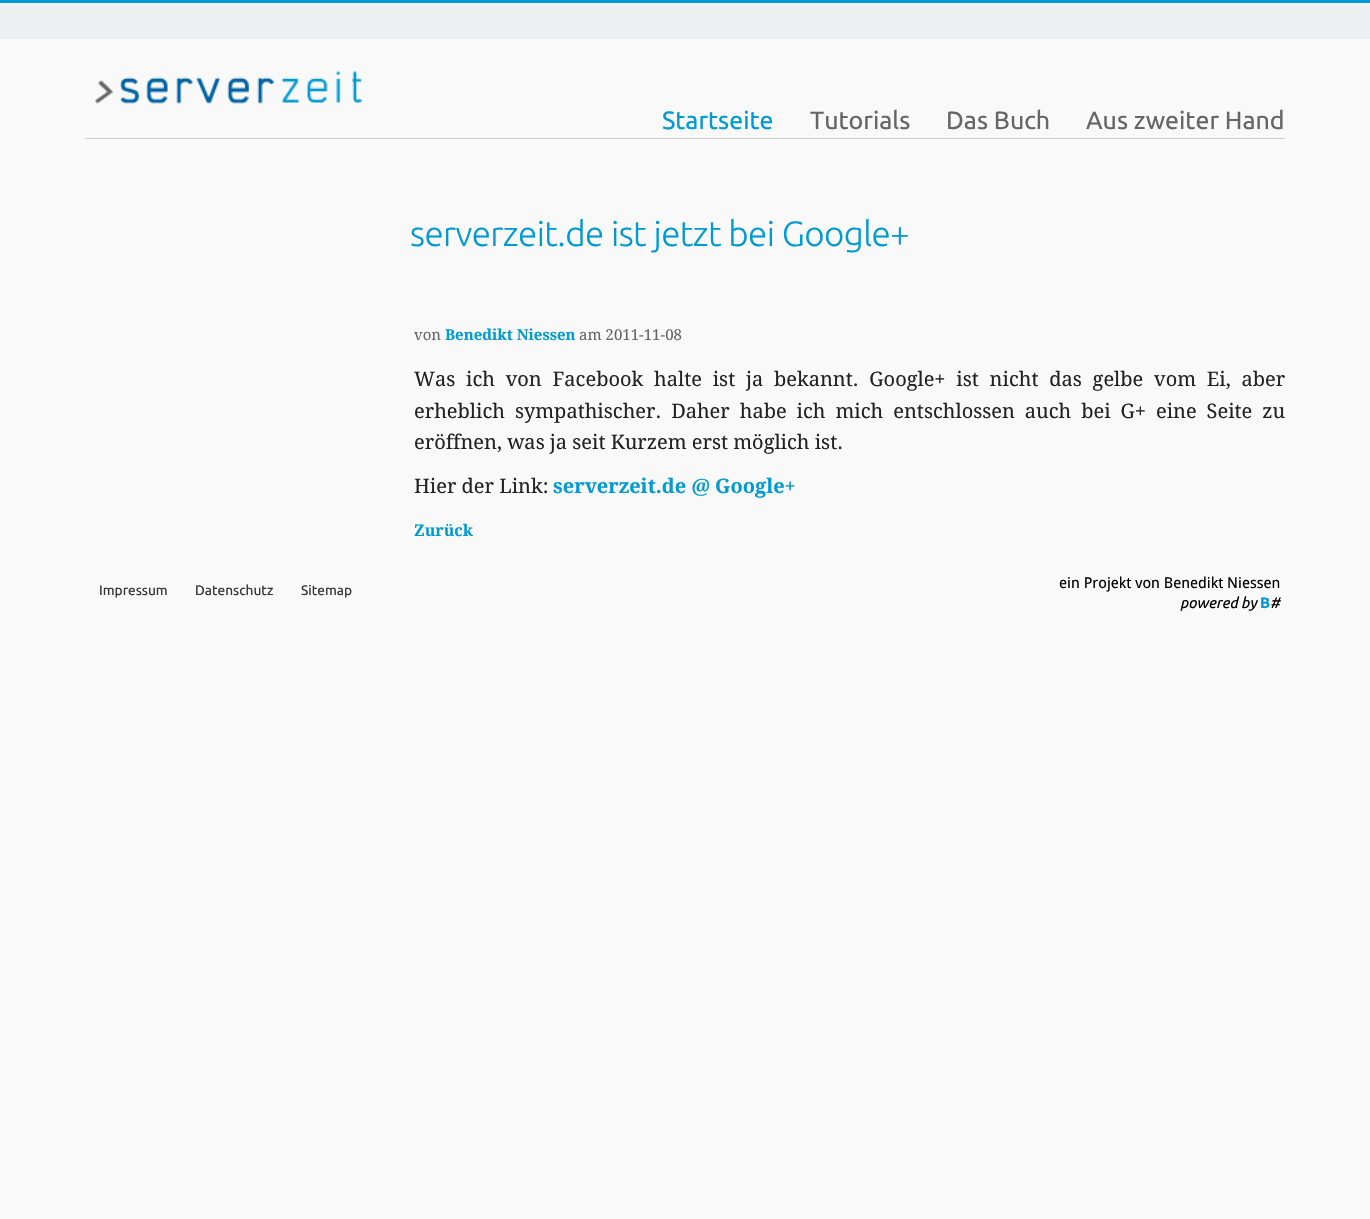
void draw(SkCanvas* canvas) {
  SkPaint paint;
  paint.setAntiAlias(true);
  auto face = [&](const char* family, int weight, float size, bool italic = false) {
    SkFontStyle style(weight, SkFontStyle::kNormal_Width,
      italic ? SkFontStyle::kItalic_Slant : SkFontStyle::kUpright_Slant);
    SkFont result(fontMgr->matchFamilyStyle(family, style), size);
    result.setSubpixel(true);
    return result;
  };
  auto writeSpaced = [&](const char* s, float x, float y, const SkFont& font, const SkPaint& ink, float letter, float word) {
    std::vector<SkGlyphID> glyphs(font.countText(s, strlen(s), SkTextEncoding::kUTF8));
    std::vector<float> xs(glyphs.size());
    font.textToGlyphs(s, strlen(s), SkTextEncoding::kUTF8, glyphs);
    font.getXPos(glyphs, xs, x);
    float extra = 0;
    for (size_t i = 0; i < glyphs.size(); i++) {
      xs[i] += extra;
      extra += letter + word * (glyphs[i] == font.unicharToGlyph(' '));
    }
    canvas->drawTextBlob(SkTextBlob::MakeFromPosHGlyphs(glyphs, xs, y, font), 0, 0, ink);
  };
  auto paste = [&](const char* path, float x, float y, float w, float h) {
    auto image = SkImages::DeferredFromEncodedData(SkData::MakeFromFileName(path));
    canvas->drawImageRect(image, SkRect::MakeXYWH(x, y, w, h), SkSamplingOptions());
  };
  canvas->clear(0xfff9f9f9);
  {
    const struct { float x, y, w, h; SkColor color; } items[] = {
      {0, 0, 1370, 3, 0xff019ad2},
      {0, 3, 1370, 1, 0xffffffff},
      {0, 4, 1370, 35, 0xffedf0f1},
      {85, 138, 1200, 1, 0xffcccccc},
    };
    for (auto [x, y, w, h, color] : items) {
      paint.setColor(color);
      canvas->drawRect(SkRect::MakeXYWH(x, y, w, h), paint);
    }
  }
  paste("img/1.png", 94, 71, 269, 33);
  auto f0 = face("Ubuntu", 400, 25);
  paint.setColor(0xff019ad2);
  canvas->drawString("Startseite", 662, 129, f0, paint);
  paint.setColor(0xff666666);
  {
    const struct { const char* s; float x, y; } items[] = {
      {"Tutorials", 810, 129},
      {"Das Buch", 946, 129},
      {"Aus zweiter Hand", 1086, 129},
    };
    for (auto [s, x, y] : items) {
      canvas->drawString(s, x, y, f0, paint);
    }
  }
  auto f1 = face("Ubuntu", 300, 35);
  paint.setColor(0xff019ad2);
  writeSpaced("serverzeit.de ist jetzt bei Google+", 410, 246, f1, paint, -0.6f, 0);
  auto f2 = face("Droid Serif", 400, 15);
  paint.setColor(0xff666666);
  canvas->drawString("von", 414, 340, f2, paint);
  auto f3 = face("Droid Serif", 700, 15);
  paint.setColor(0xff019ad2);
  canvas->drawString("Benedikt Niessen", 445, 340, f3, paint);
  paint.setColor(0xff666666);
  canvas->drawString("am 2011-11-08", 579, 340, f2, paint);
  auto f4 = face("Droid Serif", 400, 20);
  paint.setColor(0xff222222);
  writeSpaced("Was ich von Facebook halte ist ja bekannt. Google+ ist nicht das gelbe vom Ei, aber", 414, 386, f4, paint, 0, 5.6f);
  writeSpaced("erheblich sympathischer. Daher habe ich mich entschlossen auch bei G+ eine Seite zu", 414, 418, f4, paint, 0, 4.75f);
  canvas->drawString("eröffnen, was ja seit Kurzem erst möglich ist.", 414, 449, f4, paint);
  canvas->drawString("Hier der Link:", 414, 493, f4, paint);
  auto f5 = face("Droid Serif", 700, 20);
  paint.setColor(0xff019ad2);
  canvas->drawString("serverzeit.de @ Google+", 553, 493, f5, paint);
  auto f6 = face("Droid Serif", 700, 16);
  canvas->drawString("Zurück", 414, 536, f6, paint);
  auto f7 = face("Ubuntu", 400, 13.75f);
  paint.setColor(0xff333333);
  {
    const struct { const char* s; float x, y; } items[] = {
      {"Impressum", 99, 595},
      {"Datenschutz", 195, 595},
      {"Sitemap", 301, 595},
    };
    for (auto [s, x, y] : items) {
      canvas->drawString(s, x, y, f7, paint);
    }
  }
  auto f8 = face("Droid Sans", 400, 15);
  paint.setColor(0xff000000);
  canvas->drawString("ein Projekt von Benedikt Niessen", 1059, 588, f8, paint);
  auto f9 = face("Ubuntu", 400, 15, true);
  canvas->drawString("powered by", 1180, 608, f9, paint);
  auto f10 = face("Ubuntu", 700, 15);
  paint.setColor(0xff019ad2);
  canvas->drawString("B", 1260, 608, f10, paint);
  paint.setColor(0xff000000);
  canvas->drawString("#", 1270, 608, f9, paint);
}
